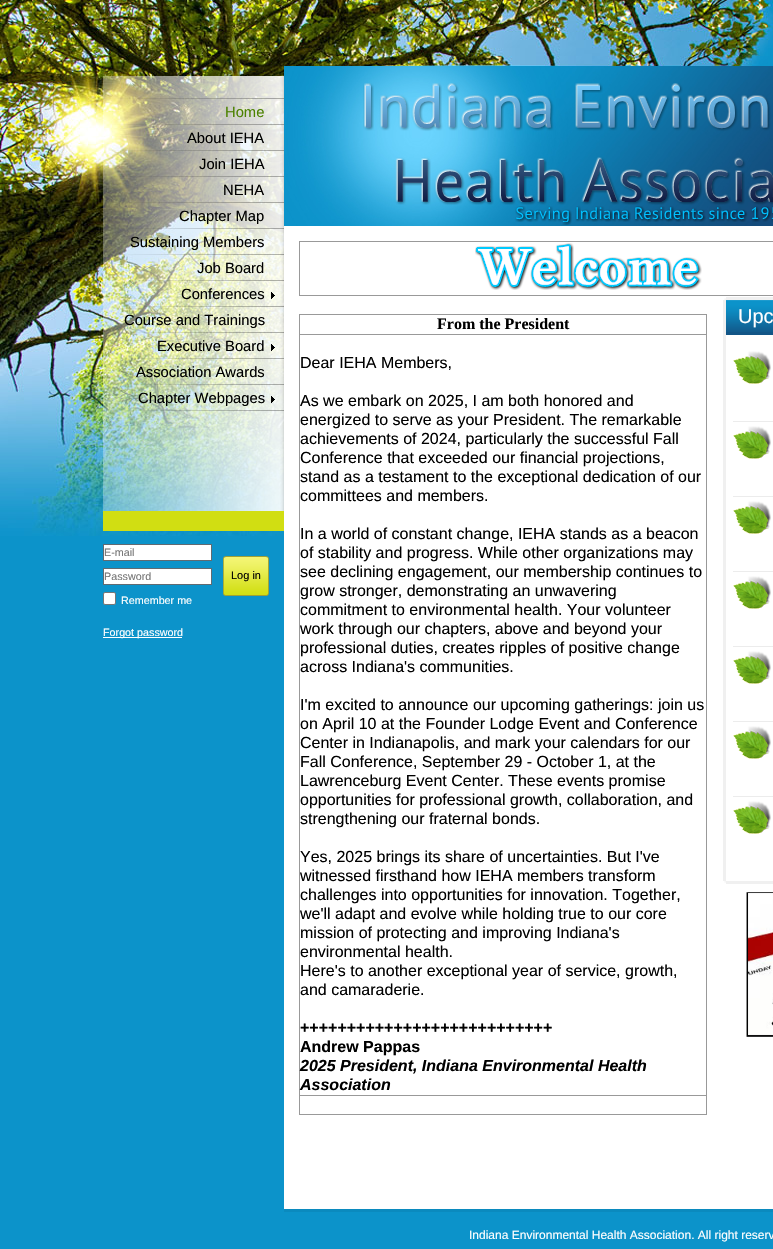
void draw(SkCanvas* canvas) {
  SkPaint paint;
  paint.setAntiAlias(true);
  auto face = [&](const char* family, int weight, float size, bool italic = false) {
    SkFontStyle style(weight, SkFontStyle::kNormal_Width,
      italic ? SkFontStyle::kItalic_Slant : SkFontStyle::kUpright_Slant);
    SkFont result(fontMgr->matchFamilyStyle(family, style), size);
    result.setSubpixel(true);
    return result;
  };
  auto paste = [&](const char* path, float x, float y, float w, float h) {
    auto image = SkImages::DeferredFromEncodedData(SkData::MakeFromFileName(path));
    canvas->drawImageRect(image, SkRect::MakeXYWH(x, y, w, h), SkSamplingOptions());
  };
  canvas->clear(0xff0c93ca);
  paste("img/1.png", 0, 0, 773, 536);
  paste("img/2.png", 284, 66, 489, 160);
  paste("img/3.png", 363, 83, 410, 122);
  paste("img/4.png", 515, 206, 258, 19);
  paste("img/5.png", 103, 76, 181, 23);
  paste("img/6.png", 103, 99, 181, 26);
  paste("img/7.png", 103, 125, 181, 26);
  paste("img/8.png", 103, 151, 181, 26);
  paste("img/9.png", 103, 177, 181, 26);
  paste("img/10.png", 103, 203, 181, 26);
  paste("img/11.png", 103, 229, 181, 26);
  paste("img/12.png", 103, 255, 181, 26);
  paste("img/13.png", 103, 281, 181, 26);
  paste("img/14.png", 271, 292, 4, 7);
  paste("img/15.png", 103, 307, 181, 26);
  paste("img/16.png", 103, 333, 181, 26);
  paste("img/17.png", 271, 344, 4, 7);
  paste("img/18.png", 103, 359, 181, 26);
  paste("img/19.png", 103, 385, 181, 26);
  paste("img/20.png", 271, 396, 4, 7);
  paste("img/21.png", 103, 411, 181, 100);
  paint.setColor(0xffd1de12);
  canvas->drawRect(SkRect::MakeXYWH(103, 511, 181, 20), paint);
  paint.setColor(0xffffffff);
  canvas->drawRect(SkRect::MakeXYWH(103.5f, 544.5f, 108, 16), paint);
  paint.setStroke(true);
  paint.setStrokeWidth(1);
  paint.setColor(0xff626a71);
  canvas->drawRect(SkRect::MakeXYWH(103.5f, 544.5f, 108, 16), paint);
  paint.setStroke(false);
  paint.setColor(0xffffffff);
  canvas->drawRect(SkRect::MakeXYWH(103.5f, 568.5f, 108, 16), paint);
  paint.setStroke(true);
  paint.setColor(0xff626a71);
  canvas->drawRect(SkRect::MakeXYWH(103.5f, 568.5f, 108, 16), paint);
  paste("img/22.png", 223, 556, 46, 40);
  paint.setStroke(false);
  paint.setColor(0xffffffff);
  canvas->drawRoundRect(SkRect::MakeXYWH(103.5f, 592.5f, 12, 12), 1.5f, 1.5f, paint);
  paint.setStroke(true);
  paint.setColor(0xff767676);
  canvas->drawRoundRect(SkRect::MakeXYWH(103.5f, 592.5f, 12, 12), 1.5f, 1.5f, paint);
  paint.setStroke(false);
  {
    const struct { float x, y, w, h; SkColor color; } items[] = {
      {103, 637, 79, 1, 0xffffffff},
      {284, 226, 489, 983, 0xffffffff},
      {299, 241, 474, 1, 0xff999999},
      {299, 295, 474, 1, 0xff999999},
      {299, 241, 1, 55, 0xff999999},
    };
    for (auto [x, y, w, h, color] : items) {
      paint.setColor(color);
      canvas->drawRect(SkRect::MakeXYWH(x, y, w, h), paint);
    }
  }
  paste("img/23.png", 475, 243, 227, 47);
  {
    const struct { float x, y, w, h; SkColor color; } items[] = {
      {299, 314, 408, 1, 0xff999999},
      {706, 314, 1, 801, 0xff999999},
      {299, 1114, 408, 1, 0xff999999},
      {299, 314, 1, 801, 0xff999999},
      {299, 334, 408, 1, 0xff999999},
      {299, 1095, 408, 1, 0xff999999},
    };
    for (auto [x, y, w, h, color] : items) {
      paint.setColor(color);
      canvas->drawRect(SkRect::MakeXYWH(x, y, w, h), paint);
    }
  }
  paste("img/24.png", 724, 298, 2, 2);
  {
    const struct { float x, y, w, h; SkColor color; } items[] = {
      {726, 297, 47, 3, 0xfff0f0f0},
      {723, 300, 3, 581, 0xfff0f0f0},
      {726, 332, 47, 3, 0xff125586},
    };
    for (auto [x, y, w, h, color] : items) {
      paint.setColor(color);
      canvas->drawRect(SkRect::MakeXYWH(x, y, w, h), paint);
    }
  }
  paste("img/25.png", 726, 300, 47, 32);
  paste("img/26.png", 733, 351, 38, 33);
  paint.setColor(0xffececec);
  canvas->drawRect(SkRect::MakeXYWH(733, 421, 40, 1), paint);
  paste("img/26.png", 733, 426, 38, 33);
  canvas->drawRect(SkRect::MakeXYWH(733, 496, 40, 1), paint);
  paste("img/26.png", 733, 501, 38, 33);
  canvas->drawRect(SkRect::MakeXYWH(733, 571, 40, 1), paint);
  paste("img/26.png", 733, 576, 38, 33);
  canvas->drawRect(SkRect::MakeXYWH(733, 646, 40, 1), paint);
  paste("img/26.png", 733, 651, 38, 33);
  canvas->drawRect(SkRect::MakeXYWH(733, 721, 40, 1), paint);
  paste("img/26.png", 733, 726, 38, 33);
  canvas->drawRect(SkRect::MakeXYWH(733, 796, 40, 1), paint);
  paste("img/26.png", 733, 801, 38, 33);
  paste("img/27.png", 724, 881, 2, 2);
  paint.setColor(0xfff0f0f0);
  canvas->drawRect(SkRect::MakeXYWH(726, 881, 47, 3), paint);
  paste("img/28.png", 746, 892, 27, 145);
  paint.setColor(0xff0b8abe);
  canvas->drawRect(SkRect::MakeXYWH(284, 1209, 489, 3), paint);
  auto f0 = face("Liberation Sans", 400, 14.75f);
  paint.setColor(0xff4c8200);
  canvas->drawString("Home", 225, 117, f0, paint);
  paint.setColor(0xff000000);
  {
    const struct { const char* s; float x, y; } items[] = {
      {"About IEHA", 187, 143},
      {"Join IEHA", 199, 169},
      {"NEHA", 223, 195},
      {"Chapter Map", 179, 221},
      {"Sustaining Members", 130, 247},
      {"Job Board", 197, 273},
      {"Conferences", 181, 299},
      {"Course and Trainings", 124, 325},
      {"Executive Board", 157, 351},
      {"Association Awards", 136, 377},
      {"Chapter Webpages", 138, 403},
    };
    for (auto [s, x, y] : items) {
      canvas->drawString(s, x, y, f0, paint);
    }
  }
  auto f1 = face("Liberation Sans", 400, 10.75f);
  paint.setColor(0xff757575);
  canvas->drawString("E-mail", 104, 556, f1, paint);
  canvas->drawString("Password", 104, 580, f1, paint);
  auto f2 = face("Liberation Sans", 400, 11);
  paint.setColor(0xff000000);
  canvas->drawString("Log in", 231, 579, f2, paint);
  paint.setColor(0xffffffff);
  canvas->drawString("Remember me", 121, 604, f1, paint);
  canvas->drawString("Forgot password", 103, 636, f1, paint);
  auto f3 = face("Liberation Serif", 700, 16);
  paint.setColor(0xff000000);
  canvas->drawString("From the President", 437, 329, f3, paint);
  auto f4 = face("Liberation Sans", 400, 16);
  {
    const struct { const char* s; float x, y; } items[] = {
      {"Dear IEHA Members,", 300, 368},
      {"As we embark on 2025, I am both honored and", 300, 406},
      {"energized to serve as your President. The remarkable", 300, 425},
      {"achievements of 2024, particularly the successful Fall", 300, 444},
      {"Conference that exceeded our financial projections,", 300, 463},
      {"stand as a testament to the exceptional dedication of our", 300, 482},
      {"committees and members.", 300, 501},
      {"In a world of constant change, IEHA stands as a beacon", 300, 539},
      {"of stability and progress. While other organizations may", 300, 558},
      {"see declining engagement, our membership continues to", 300, 577},
      {"grow stronger, demonstrating an unwavering", 300, 596},
      {"commitment to environmental health. Your volunteer", 300, 615},
      {"work through our chapters, above and beyond your", 300, 634},
      {"professional duties, creates ripples of positive change", 300, 653},
      {"across Indiana's communities.", 300, 672},
      {"I'm excited to announce our upcoming gatherings: join us", 300, 710},
      {"on April 10 at the Founder Lodge Event and Conference", 300, 729},
      {"Center in Indianapolis, and mark your calendars for our", 300, 748},
      {"Fall Conference, September 29 - October 1, at the", 300, 767},
      {"Lawrenceburg Event Center. These events promise", 300, 786},
      {"opportunities for professional growth, collaboration, and", 300, 805},
      {"strengthening our fraternal bonds.", 300, 824},
      {"Yes, 2025 brings its share of uncertainties. But I've", 300, 862},
      {"witnessed firsthand how IEHA members transform", 300, 881},
      {"challenges into opportunities for innovation. Together,", 300, 900},
      {"we'll adapt and evolve while holding true to our core", 300, 919},
      {"mission of protecting and improving Indiana's", 300, 938},
      {"environmental health.", 300, 957},
      {"Here's to another exceptional year of service, growth,", 300, 976},
      {"and camaraderie.", 300, 995},
    };
    for (auto [s, x, y] : items) {
      canvas->drawString(s, x, y, f4, paint);
    }
  }
  auto f5 = face("Liberation Sans", 700, 16);
  canvas->drawString("+++++++++++++++++++++++++++", 300, 1033, f5, paint);
  canvas->drawString("Andrew Pappas", 300, 1052, f5, paint);
  auto f6 = face("Liberation Sans", 700, 16, true);
  canvas->drawString("2025 President, Indiana Environmental Health", 300, 1071, f6, paint);
  canvas->drawString("Association", 300, 1090, f6, paint);
  auto f7 = face("Liberation Sans", 400, 20);
  paint.setColor(0xffffffff);
  canvas->drawString("Upc", 738, 323, f7, paint);
  auto f8 = face("Liberation Sans", 400, 12);
  canvas->drawString("Indiana Environmental Health Association. All right reserv", 469, 1239, f8, paint);
}
